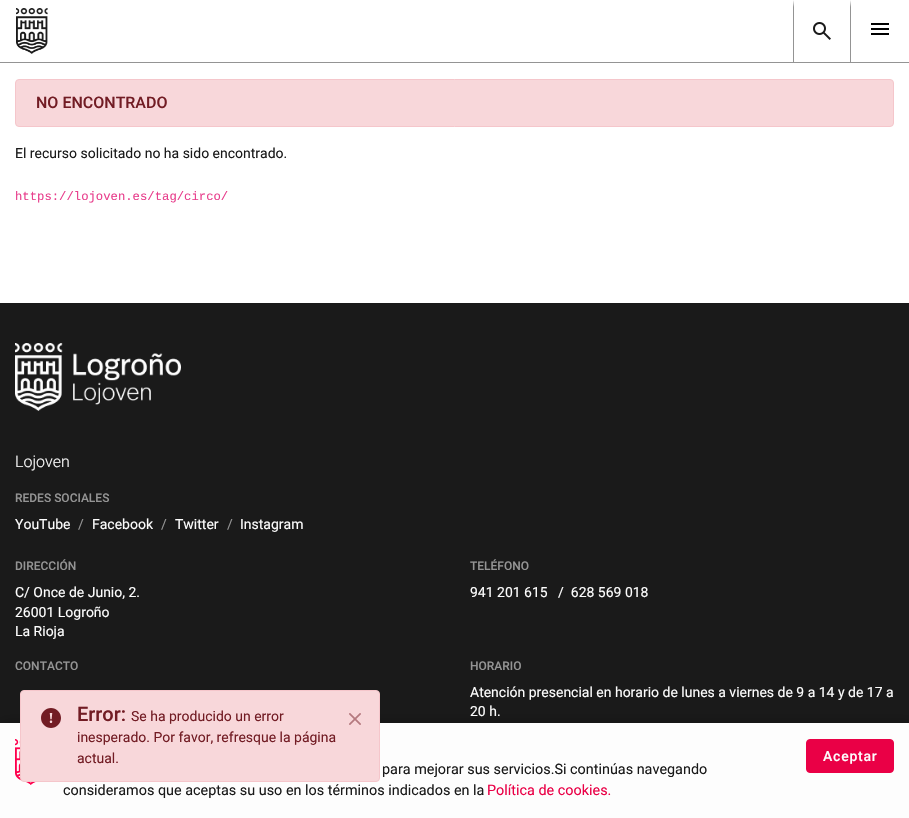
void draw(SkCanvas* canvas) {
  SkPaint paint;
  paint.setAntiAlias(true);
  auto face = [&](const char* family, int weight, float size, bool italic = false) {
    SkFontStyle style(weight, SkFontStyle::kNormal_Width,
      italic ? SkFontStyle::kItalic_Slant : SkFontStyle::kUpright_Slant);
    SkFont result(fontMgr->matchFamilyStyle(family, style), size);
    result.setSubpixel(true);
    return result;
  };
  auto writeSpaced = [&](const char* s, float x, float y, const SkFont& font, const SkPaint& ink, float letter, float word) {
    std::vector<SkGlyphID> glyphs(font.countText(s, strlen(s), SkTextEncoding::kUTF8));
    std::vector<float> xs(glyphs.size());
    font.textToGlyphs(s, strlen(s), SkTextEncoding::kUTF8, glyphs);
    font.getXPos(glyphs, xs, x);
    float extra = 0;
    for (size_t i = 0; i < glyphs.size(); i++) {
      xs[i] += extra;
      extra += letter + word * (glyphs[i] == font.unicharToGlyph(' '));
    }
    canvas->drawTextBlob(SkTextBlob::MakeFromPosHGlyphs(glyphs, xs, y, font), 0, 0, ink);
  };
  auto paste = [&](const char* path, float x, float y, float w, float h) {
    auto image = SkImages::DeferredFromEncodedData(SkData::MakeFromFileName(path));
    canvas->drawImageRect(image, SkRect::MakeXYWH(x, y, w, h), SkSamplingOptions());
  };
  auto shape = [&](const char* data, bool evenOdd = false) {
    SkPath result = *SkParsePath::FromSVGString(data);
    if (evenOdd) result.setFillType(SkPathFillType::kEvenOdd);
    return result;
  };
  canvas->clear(0xffffffff);
  paint.setColor(0xff949494);
  canvas->drawRect(SkRect::MakeXYWH(0, 62, 909, 1), paint);
  paste("img/1.png", 16, 8, 32, 46);
  canvas->drawPath(shape("M851 0V62H850V7ZM793 62V0L794 7V62Z"), paint);
  paste("img/2.png", 813, 22, 18, 18);
  paste("img/3.png", 871, 23, 18, 12);
  paint.setColor(0xfff8d7da);
  canvas->drawRoundRect(SkRect::MakeXYWH(15.5f, 79.5f, 878, 47), 3.5f, 3.5f, paint);
  paint.setStroke(true);
  paint.setStrokeWidth(1);
  paint.setColor(0xfff5c6cb);
  canvas->drawRoundRect(SkRect::MakeXYWH(15.5f, 79.5f, 878, 47), 3.5f, 3.5f, paint);
  paint.setStroke(false);
  paint.setColor(0xff1a1a1a);
  canvas->drawRect(SkRect::MakeXYWH(0, 303, 909, 420), paint);
  paste("img/4.png", 15, 343, 166, 68);
  paint.setColor(0xff121212);
  paint.setMaskFilter(SkMaskFilter::MakeBlur(kNormal_SkBlurStyle, 7));
  canvas->drawRect(SkRect::MakeXYWH(0, 723, 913, 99), paint);
  paint.setMaskFilter(nullptr);
  paint.setColor(0xfffdfdfd);
  canvas->drawRect(SkRect::MakeXYWH(0, 723, 909, 95), paint);
  paste("img/5.png", 15, 739, 21, 46);
  paint.setColor(0xffea0046);
  canvas->drawRoundRect(SkRect::MakeXYWH(806.5f, 739.5f, 87, 33), 3.5f, 3.5f, paint);
  paint.setStroke(true);
  canvas->drawRoundRect(SkRect::MakeXYWH(806.5f, 739.5f, 87, 33), 3.5f, 3.5f, paint);
  paint.setStroke(false);
  paint.setColor(0xfff8d7da);
  canvas->drawRoundRect(SkRect::MakeXYWH(20.5f, 690.5f, 359, 91), 3.5f, 3.5f, paint);
  paint.setStroke(true);
  paint.setColor(0xfff5c6cb);
  canvas->drawRoundRect(SkRect::MakeXYWH(20.5f, 690.5f, 359, 91), 3.5f, 3.5f, paint);
  paste("img/6.png", 41, 708, 20, 20);
  paste("img/7.png", 349, 713, 12, 12);
  auto f0 = face("Roboto", 500, 16);
  paint.setStroke(false);
  paint.setColor(0xff721c24);
  canvas->drawString("NO ENCONTRADO", 36, 108, f0, paint);
  auto f1 = face("Roboto", 400, 14);
  paint.setColor(0xff1a1a1a);
  canvas->drawString("El recurso solicitado no ha sido encontrado.", 15, 158, f1, paint);
  auto f2 = face("Liberation Mono", 400, 12.25f);
  paint.setColor(0xffe83e8c);
  canvas->drawString("https://lojoven.es/tag/circo/", 15, 200, f2, paint);
  auto f3 = face("Roboto", 300, 16);
  paint.setColor(0xfffdfdfd);
  canvas->drawString("Lojoven", 15, 467, f3, paint);
  auto f4 = face("Roboto", 500, 12);
  paint.setColor(0xff949494);
  canvas->drawString("REDES SOCIALES", 15, 502, f4, paint);
  paint.setColor(0xfffdfdfd);
  canvas->drawString("YouTube", 15, 529, f1, paint);
  paint.setColor(0xff949494);
  canvas->drawString("/", 78, 529, f1, paint);
  paint.setColor(0xfffdfdfd);
  canvas->drawString("Facebook", 92, 529, f1, paint);
  paint.setColor(0xff949494);
  canvas->drawString("/", 161, 529, f1, paint);
  paint.setColor(0xfffdfdfd);
  canvas->drawString("Twitter", 175, 529, f1, paint);
  paint.setColor(0xff949494);
  canvas->drawString("/", 227, 529, f1, paint);
  paint.setColor(0xfffdfdfd);
  canvas->drawString("Instagram", 240, 529, f1, paint);
  paint.setColor(0xff949494);
  canvas->drawString("DIRECCIÓN", 15, 570, f4, paint);
  paint.setColor(0xfffdfdfd);
  {
    const struct { const char* s; float x, y; } items[] = {
      {"C/ Once de Junio, 2.", 15, 597},
      {"26001 Logroño", 15, 617},
      {"La Rioja", 15, 636},
    };
    for (auto [s, x, y] : items) {
      canvas->drawString(s, x, y, f1, paint);
    }
  }
  paint.setColor(0xff949494);
  canvas->drawString("TELÉFONO", 470, 570, f4, paint);
  paint.setColor(0xfffdfdfd);
  canvas->drawString("941 201 615   /  628 569 018", 470, 597, f1, paint);
  paint.setColor(0xff949494);
  canvas->drawString("CONTACTO", 15, 670, f4, paint);
  canvas->drawString("HORARIO", 470, 670, f4, paint);
  paint.setColor(0xfffdfdfd);
  canvas->drawString("Atención presencial en horario de lunes a viernes de 9 a 14 y de 17 a", 470, 697, f1, paint);
  canvas->drawString("20 h.", 470, 716, f1, paint);
  auto f5 = face("Roboto", 500, 14);
  writeSpaced("Aceptar", 823, 761, f5, paint, 0.75f, 0);
  auto f6 = face("Roboto", 400, 14.4f);
  paint.setColor(0xff1a1a1a);
  canvas->drawString("para mejorar sus servicios.Si continúas navegando", 382, 774, f6, paint);
  canvas->drawString("consideramos que aceptas su uso en los términos indicados en la", 63, 795, f6, paint);
  paint.setColor(0xffea0046);
  canvas->drawString("Política de cookies.", 487, 795, f6, paint);
  auto f7 = face("Roboto", 500, 20);
  paint.setColor(0xff721c24);
  canvas->drawString("Error:", 77, 721, f7, paint);
  {
    const struct { const char* s; float x, y; } items[] = {
      {"Se ha producido un error", 131, 721},
      {"inesperado. Por favor, refresque la página", 77, 742},
      {"actual.", 77, 763},
    };
    for (auto [s, x, y] : items) {
      canvas->drawString(s, x, y, f1, paint);
    }
  }
}
